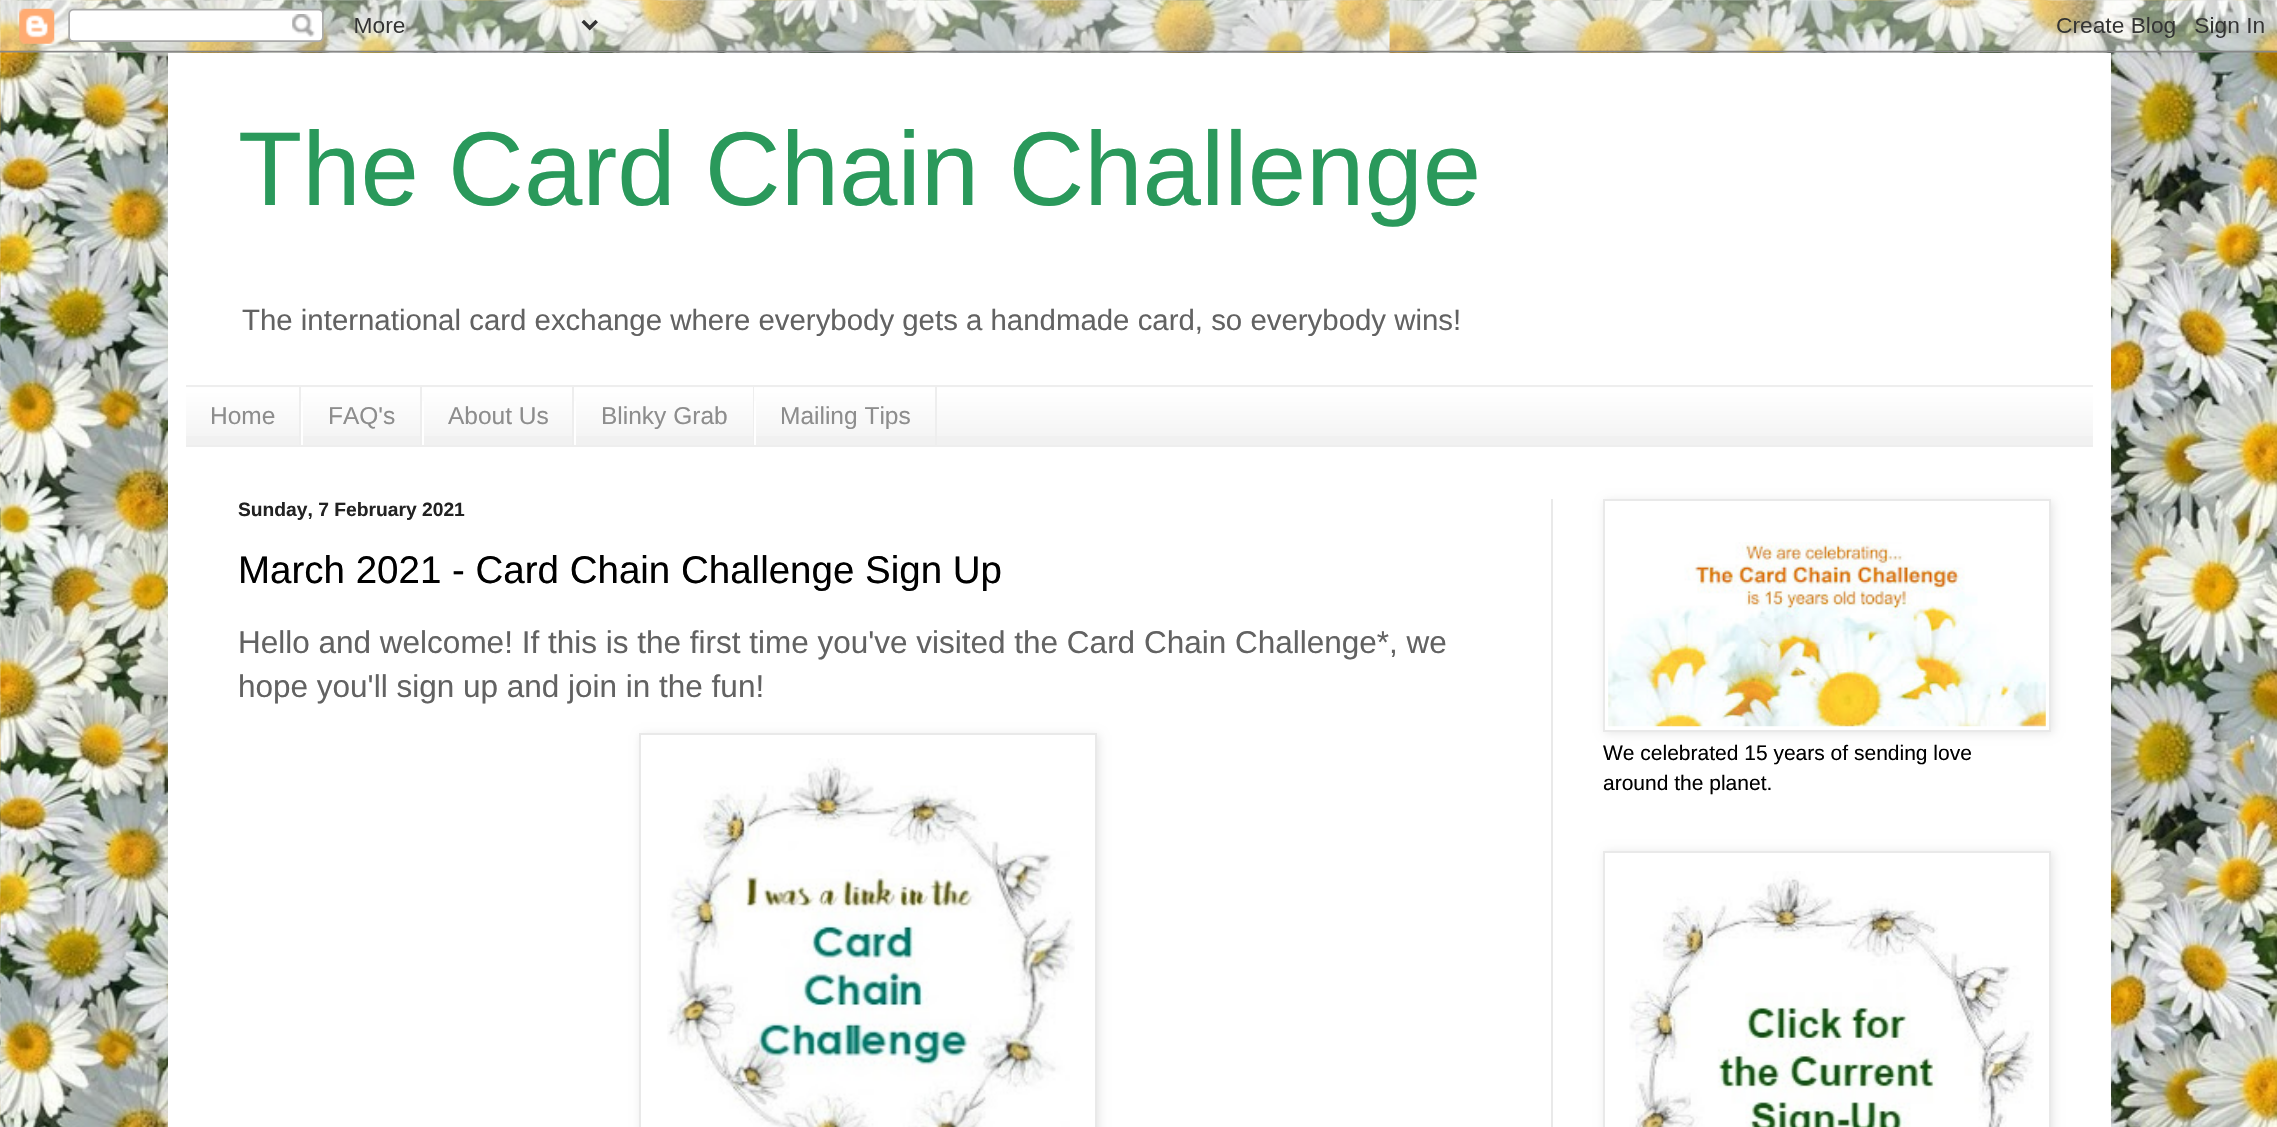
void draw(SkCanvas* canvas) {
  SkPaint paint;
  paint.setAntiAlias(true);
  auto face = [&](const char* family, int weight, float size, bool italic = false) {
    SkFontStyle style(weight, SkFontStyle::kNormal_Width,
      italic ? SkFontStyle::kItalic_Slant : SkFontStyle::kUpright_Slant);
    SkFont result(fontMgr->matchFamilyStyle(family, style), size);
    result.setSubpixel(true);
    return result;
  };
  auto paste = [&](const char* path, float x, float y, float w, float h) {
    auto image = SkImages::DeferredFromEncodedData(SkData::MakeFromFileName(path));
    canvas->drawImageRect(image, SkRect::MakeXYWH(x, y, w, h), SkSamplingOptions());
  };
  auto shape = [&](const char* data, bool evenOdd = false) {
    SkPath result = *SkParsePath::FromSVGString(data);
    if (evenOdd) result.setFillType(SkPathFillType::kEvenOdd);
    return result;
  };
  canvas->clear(0xffffffff);
  paste("img/1.png", 0, 0, 2277, 1127);
  paint.setColor(0x26000000);
  paint.setMaskFilter(SkMaskFilter::MakeBlur(kNormal_SkBlurStyle, 35));
  canvas->drawRect(SkRect::MakeXYWH(168, 53, 1943, 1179), paint);
  paint.setMaskFilter(nullptr);
  paste("img/2.png", 0, 0, 2277, 53);
  paint.setColor(0xffffffff);
  canvas->drawRect(SkRect::MakeXYWH(168, 53, 1943, 1074), paint);
  paint.setColor(0xfff1f1f1);
  canvas->drawRect(SkRect::MakeXYWH(186, 387, 1907, 58), paint);
  paste("img/3.png", 186, 387, 1907, 49);
  {
    const struct { float x, y, w, h; SkColor color; } items[] = {
      {186, 385, 1907, 2, 0xffeeeeee},
      {186, 445, 1907, 2, 0xffeeeeee},
      {299, 387, 2, 58, 0xffeeeeee},
      {420, 387, 2, 58, 0xffeeeeee},
      {301, 401, 2, 44, 0xffffffff},
      {572, 387, 2, 58, 0xffeeeeee},
      {422, 401, 2, 44, 0xffffffff},
      {753, 387, 1, 58, 0xffeeeeee},
      {574, 401, 2, 44, 0xffffffff},
      {935, 387, 2, 58, 0xffeeeeee},
      {754, 401, 2, 44, 0xffffffff},
      {1551, 499, 2, 628, 0xffe9e9e9},
    };
    for (auto [x, y, w, h, color] : items) {
      paint.setColor(color);
      canvas->drawRect(SkRect::MakeXYWH(x, y, w, h), paint);
    }
  }
  paint.setColor(0x1a000000);
  paint.setMaskFilter(SkMaskFilter::MakeBlur(kNormal_SkBlurStyle, 4.5f));
  canvas->drawRect(SkRect::MakeXYWH(641, 735, 458, 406), paint);
  paint.setMaskFilter(nullptr);
  paint.setColor(0xffffffff);
  canvas->drawRect(SkRect::MakeXYWH(640, 734, 456, 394), paint);
  paint.setStroke(true);
  paint.setStrokeWidth(2);
  paint.setColor(0xffe9e9e9);
  canvas->drawRect(SkRect::MakeXYWH(640, 734, 456, 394), paint);
  paste("img/4.png", 667, 758, 408, 369);
  paint.setStroke(false);
  paint.setColor(0x1a000000);
  paint.setMaskFilter(SkMaskFilter::MakeBlur(kNormal_SkBlurStyle, 4.5f));
  canvas->drawRect(SkRect::MakeXYWH(1605, 501, 448, 232), paint);
  paint.setMaskFilter(nullptr);
  paint.setColor(0xffffffff);
  canvas->drawRect(SkRect::MakeXYWH(1604, 500, 446, 231), paint);
  paint.setStroke(true);
  paint.setColor(0xffe9e9e9);
  canvas->drawRect(SkRect::MakeXYWH(1604, 500, 446, 231), paint);
  paste("img/5.png", 1608, 542, 438, 185);
  canvas->save();
  canvas->clipPath(shape("M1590 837H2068V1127H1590ZM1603 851H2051V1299H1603Z", true), true);
  paint.setStroke(false);
  paint.setColor(0x1a000000);
  paint.setMaskFilter(SkMaskFilter::MakeBlur(kNormal_SkBlurStyle, 4.5f));
  canvas->drawRect(SkRect::MakeXYWH(1605, 852, 448, 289), paint);
  paint.setMaskFilter(nullptr);
  canvas->restore();
  paint.setStroke(true);
  paint.setColor(0xffe9e9e9);
  canvas->drawRect(SkRect::MakeXYWH(1604, 852, 446, 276), paint);
  paste("img/6.png", 1629, 871, 405, 256);
  auto f0 = face("Liberation Sans", 400, 105);
  paint.setStroke(false);
  paint.setColor(0xff2a995b);
  canvas->drawString("The Card Chain Challenge", 238, 205, f0, paint);
  auto f1 = face("Liberation Sans", 400, 29.4f);
  paint.setColor(0xff626262);
  canvas->drawString("The international card exchange where everybody gets a handmade card, so everybody wins!", 242, 330, f1, paint);
  auto f2 = face("Liberation Sans", 400, 24.5f);
  paint.setColor(0xff8d8d8d);
  {
    const struct { const char* s; float x, y; } items[] = {
      {"Home", 210, 424},
      {"FAQ's", 328, 424},
      {"About Us", 448, 424},
      {"Blinky Grab", 601, 424},
      {"Mailing Tips", 780, 424},
    };
    for (auto [s, x, y] : items) {
      canvas->drawString(s, x, y, f2, paint);
    }
  }
  auto f3 = face("Liberation Sans", 700, 19.25f);
  paint.setColor(0xff222222);
  canvas->drawString("Sunday, 7 February 2021", 238, 516, f3, paint);
  auto f4 = face("Liberation Sans", 400, 38.5f);
  paint.setColor(0xff000000);
  canvas->drawString("March 2021 - Card Chain Challenge Sign Up", 238, 583, f4, paint);
  auto f5 = face("Liberation Sans", 400, 31.5f);
  paint.setColor(0xff626262);
  canvas->drawString("Hello and welcome! If this is the first time you've visited the Card Chain Challenge*, we", 238, 653, f5, paint);
  canvas->drawString("hope you'll sign up and join in the fun!", 238, 697, f5, paint);
  auto f6 = face("Liberation Sans", 400, 21);
  paint.setColor(0xff000000);
  canvas->drawString("We celebrated 15 years of sending love", 1603, 760, f6, paint);
  canvas->drawString("around the planet.", 1603, 790, f6, paint);
}
